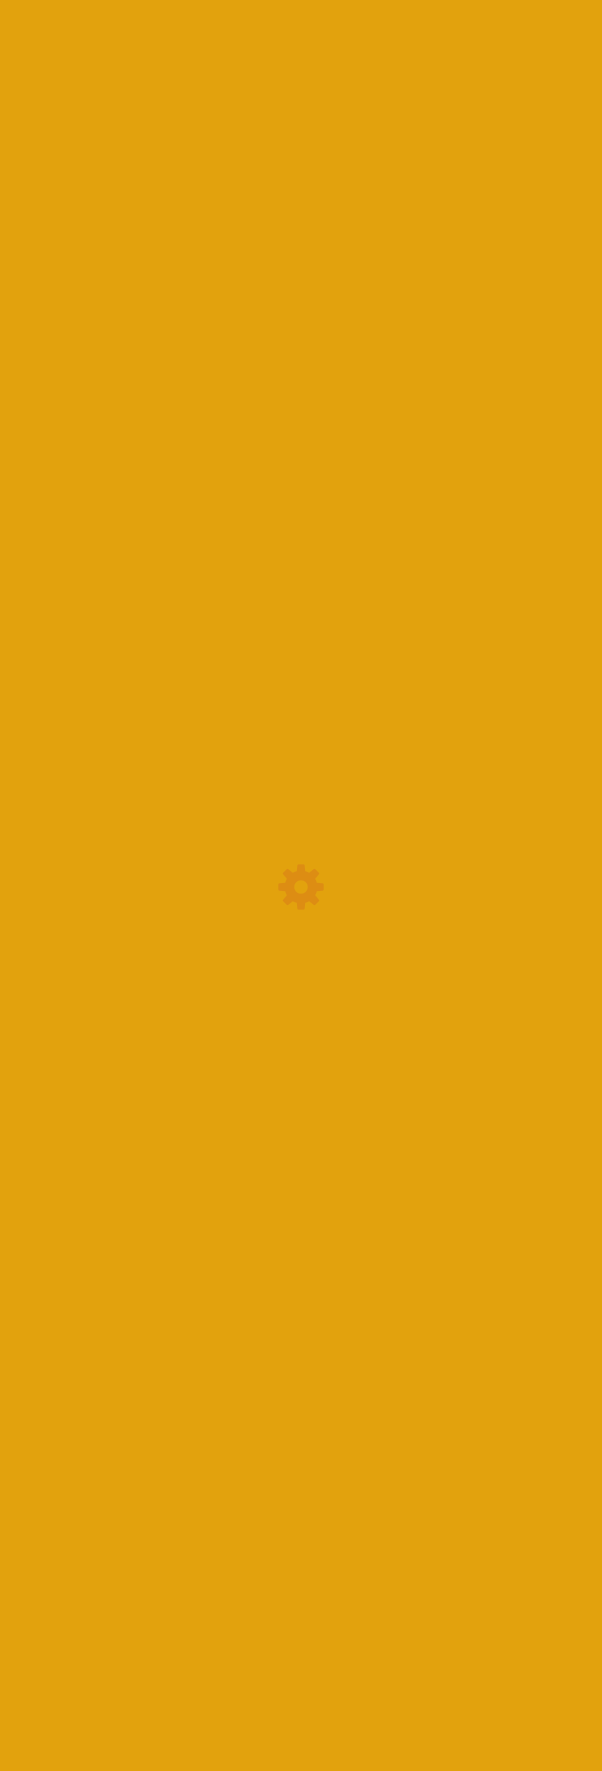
void draw(SkCanvas* canvas) {
  SkPaint paint;
  paint.setAntiAlias(true);
  auto paste = [&](const char* path, float x, float y, float w, float h) {
    auto image = SkImages::DeferredFromEncodedData(SkData::MakeFromFileName(path));
    canvas->drawImageRect(image, SkRect::MakeXYWH(x, y, w, h), SkSamplingOptions());
  };
  canvas->clear(0xffe2a20d);
  paste("img/1.png", 278, 864, 46, 46);
}
